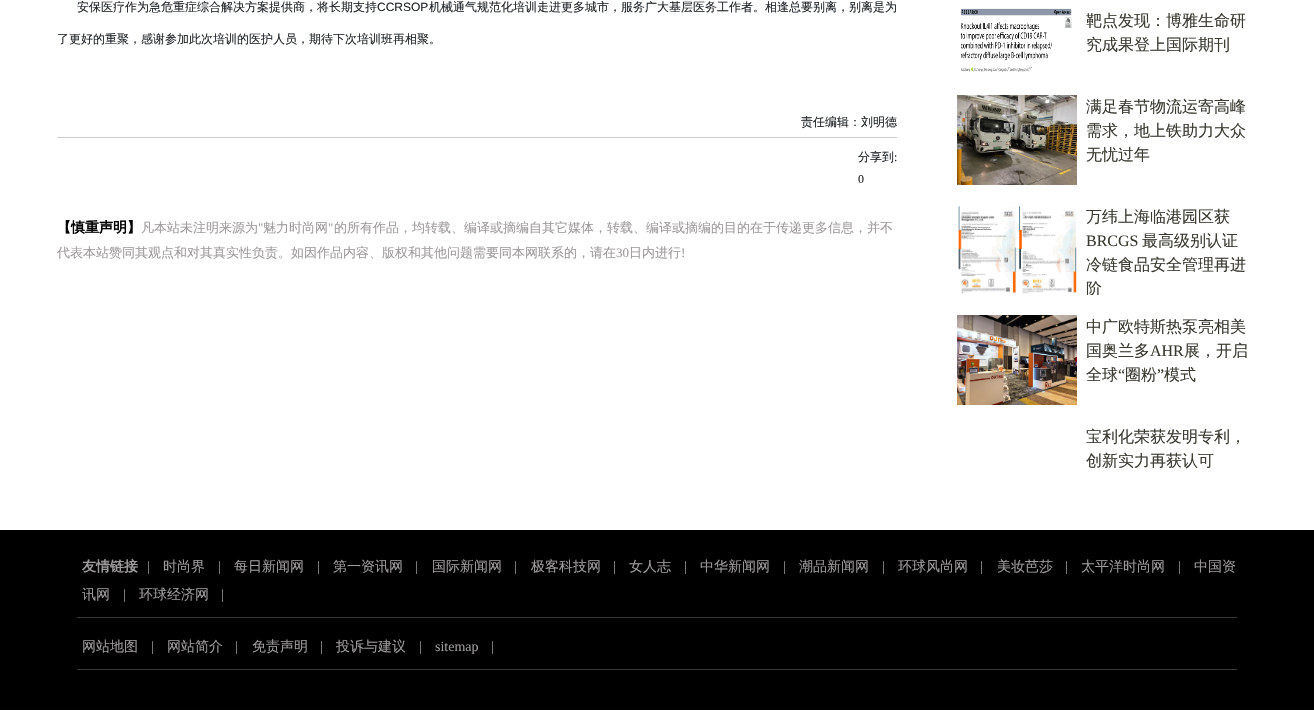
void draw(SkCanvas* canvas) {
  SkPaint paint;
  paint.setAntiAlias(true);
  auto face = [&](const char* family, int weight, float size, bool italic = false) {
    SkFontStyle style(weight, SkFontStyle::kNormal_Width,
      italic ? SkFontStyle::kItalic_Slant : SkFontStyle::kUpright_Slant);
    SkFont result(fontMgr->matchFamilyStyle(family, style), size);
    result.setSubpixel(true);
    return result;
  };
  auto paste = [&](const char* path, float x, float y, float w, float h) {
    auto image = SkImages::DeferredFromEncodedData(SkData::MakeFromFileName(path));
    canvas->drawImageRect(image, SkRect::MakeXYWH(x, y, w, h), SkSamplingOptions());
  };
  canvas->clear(0xffffffff);
  paint.setColor(0xffcccccc);
  canvas->drawRect(SkRect::MakeXYWH(57, 137, 840, 1), paint);
  paste("img/1.png", 960, 8, 112, 64);
  paste("img/2.png", 957, 95, 120, 90);
  paste("img/3.png", 958, 206, 119, 88);
  paste("img/4.png", 957, 315, 120, 90);
  {
    const struct { float x, y, w, h; SkColor color; } items[] = {
      {0, 530, 1314, 180, 0xff000000},
      {77, 617, 1160, 1, 0xff393a3c},
      {77, 669, 1160, 1, 0xff393a3c},
    };
    for (auto [x, y, w, h, color] : items) {
      paint.setColor(color);
      canvas->drawRect(SkRect::MakeXYWH(x, y, w, h), paint);
    }
  }
  auto f0 = face("WenQuanYi Zen Hei", 500, 12);
  paint.setColor(0xff212529);
  canvas->drawString("安保医疗作为急危重症综合解决方案提供商，将长期支持", 77, 11, f0, paint);
  auto f1 = face("Liberation Sans", 400, 12);
  canvas->drawString("CCRSOP", 377, 11, f1, paint);
  {
    const struct { const char* s; float x, y; } items[] = {
      {"机械通气规范化培训走进更多城市，服务广大基层医务工作者。相逢总要别离，别离是为", 429, 11},
      {"了更好的重聚，感谢参加此次培训的医护人员，期待下次培训班再相聚。", 57, 43},
      {"责任编辑：刘明德", 801, 126},
      {"分享到", 858, 161},
    };
    for (auto [s, x, y] : items) {
      canvas->drawString(s, x, y, f0, paint);
    }
  }
  auto f2 = face("Liberation Serif", 400, 12);
  canvas->drawString(":", 894, 161, f2, paint);
  canvas->drawString("0", 858, 183, f2, paint);
  auto f3 = face("WenQuanYi Zen Hei", 700, 14);
  paint.setColor(0xff000000);
  canvas->drawString("【慎重声明】", 57, 232, f3, paint);
  auto f4 = face("WenQuanYi Zen Hei", 500, 13);
  paint.setColor(0xff9e9b9b);
  canvas->drawString("凡本站未注明来源为", 141, 232, f4, paint);
  auto f5 = face("Liberation Serif", 400, 13);
  canvas->drawString("\"", 258, 232, f5, paint);
  canvas->drawString("魅力时尚网", 263, 232, f4, paint);
  canvas->drawString("\"", 328, 232, f5, paint);
  canvas->drawString("的所有作品，均转载、编译或摘编自其它媒体，转载、编译或摘编的目的在于传递更多信息，并不", 334, 232, f4, paint);
  canvas->drawString("代表本站赞同其观点和对其真实性负责。如因作品内容、版权和其他问题需要同本网联系的，请在", 57, 257, f4, paint);
  canvas->drawString("30", 616, 257, f5, paint);
  canvas->drawString("日内进行", 629, 257, f4, paint);
  canvas->drawString("!", 681, 257, f5, paint);
  auto f6 = face("WenQuanYi Zen Hei", 500, 16);
  paint.setColor(0xff3a3a31);
  {
    const struct { const char* s; float x, y; } items[] = {
      {"靶点发现：博雅生命研", 1086, 26},
      {"究成果登上国际期刊", 1086, 50},
      {"满足春节物流运寄高峰", 1086, 112},
      {"需求，地上铁助力大众", 1086, 136},
      {"无忧过年", 1086, 160},
      {"万纬上海临港园区获", 1086, 222},
    };
    for (auto [s, x, y] : items) {
      canvas->drawString(s, x, y, f6, paint);
    }
  }
  auto f7 = face("Liberation Serif", 400, 16);
  canvas->drawString("BRCGS", 1086, 246, f7, paint);
  canvas->drawString("最高级别认证", 1142, 246, f6, paint);
  canvas->drawString("冷链食品安全管理再进", 1086, 270, f6, paint);
  canvas->save();
  canvas->clipRect(SkRect::MakeXYWH(1086, 205, 171, 90));
  canvas->drawString("阶", 1086, 294, f6, paint);
  canvas->restore();
  canvas->drawString("中广欧特斯热泵亮相美", 1086, 332, f6, paint);
  canvas->drawString("国奥兰多", 1086, 356, f6, paint);
  canvas->drawString("AHR", 1150, 356, f7, paint);
  canvas->drawString("展，开启", 1184, 356, f6, paint);
  canvas->drawString("全球", 1086, 380, f6, paint);
  canvas->drawString("“", 1118, 380, f7, paint);
  canvas->drawString("圈粉", 1125, 380, f6, paint);
  canvas->drawString("”", 1157, 380, f7, paint);
  {
    const struct { const char* s; float x, y; } items[] = {
      {"模式", 1164, 380},
      {"宝利化荣获发明专利，", 1086, 442},
      {"创新实力再获认可", 1086, 466},
    };
    for (auto [s, x, y] : items) {
      canvas->drawString(s, x, y, f6, paint);
    }
  }
  paint.setColor(0xff9e9b9b);
  canvas->drawString("友情链接", 82, 571, f3, paint);
  auto f8 = face("Liberation Serif", 400, 14);
  canvas->drawString("|", 147, 571, f8, paint);
  auto f9 = face("WenQuanYi Zen Hei", 500, 14);
  canvas->drawString("时尚界", 163, 571, f9, paint);
  canvas->drawString("|", 218, 571, f8, paint);
  canvas->drawString("每日新闻网", 234, 571, f9, paint);
  canvas->drawString("|", 317, 571, f8, paint);
  canvas->drawString("第一资讯网", 333, 571, f9, paint);
  canvas->drawString("|", 415, 571, f8, paint);
  canvas->drawString("国际新闻网", 432, 571, f9, paint);
  canvas->drawString("|", 514, 571, f8, paint);
  canvas->drawString("极客科技网", 531, 571, f9, paint);
  canvas->drawString("|", 613, 571, f8, paint);
  canvas->drawString("女人志", 629, 571, f9, paint);
  canvas->drawString("|", 684, 571, f8, paint);
  canvas->drawString("中华新闻网", 700, 571, f9, paint);
  canvas->drawString("|", 783, 571, f8, paint);
  canvas->drawString("潮品新闻网", 799, 571, f9, paint);
  canvas->drawString("|", 882, 571, f8, paint);
  canvas->drawString("环球风尚网", 898, 571, f9, paint);
  canvas->drawString("|", 980, 571, f8, paint);
  canvas->drawString("美妆芭莎", 997, 571, f9, paint);
  canvas->drawString("|", 1065, 571, f8, paint);
  canvas->drawString("太平洋时尚网", 1081, 571, f9, paint);
  canvas->drawString("|", 1178, 571, f8, paint);
  canvas->drawString("中国资", 1194, 571, f9, paint);
  canvas->drawString("讯网", 82, 599, f9, paint);
  canvas->drawString("|", 123, 599, f8, paint);
  canvas->drawString("环球经济网", 139, 599, f9, paint);
  canvas->drawString("|", 221, 599, f8, paint);
  canvas->drawString("网站地图", 82, 651, f9, paint);
  canvas->drawString("|", 151, 651, f8, paint);
  canvas->drawString("网站简介", 167, 651, f9, paint);
  canvas->drawString("|", 235, 651, f8, paint);
  canvas->drawString("免责声明", 252, 651, f9, paint);
  canvas->drawString("|", 320, 651, f8, paint);
  canvas->drawString("投诉与建议", 336, 651, f9, paint);
  {
    const struct { const char* s; float x, y; } items[] = {
      {"|", 419, 651},
      {"sitemap", 435, 651},
      {"|", 491, 651},
    };
    for (auto [s, x, y] : items) {
      canvas->drawString(s, x, y, f8, paint);
    }
  }
}
